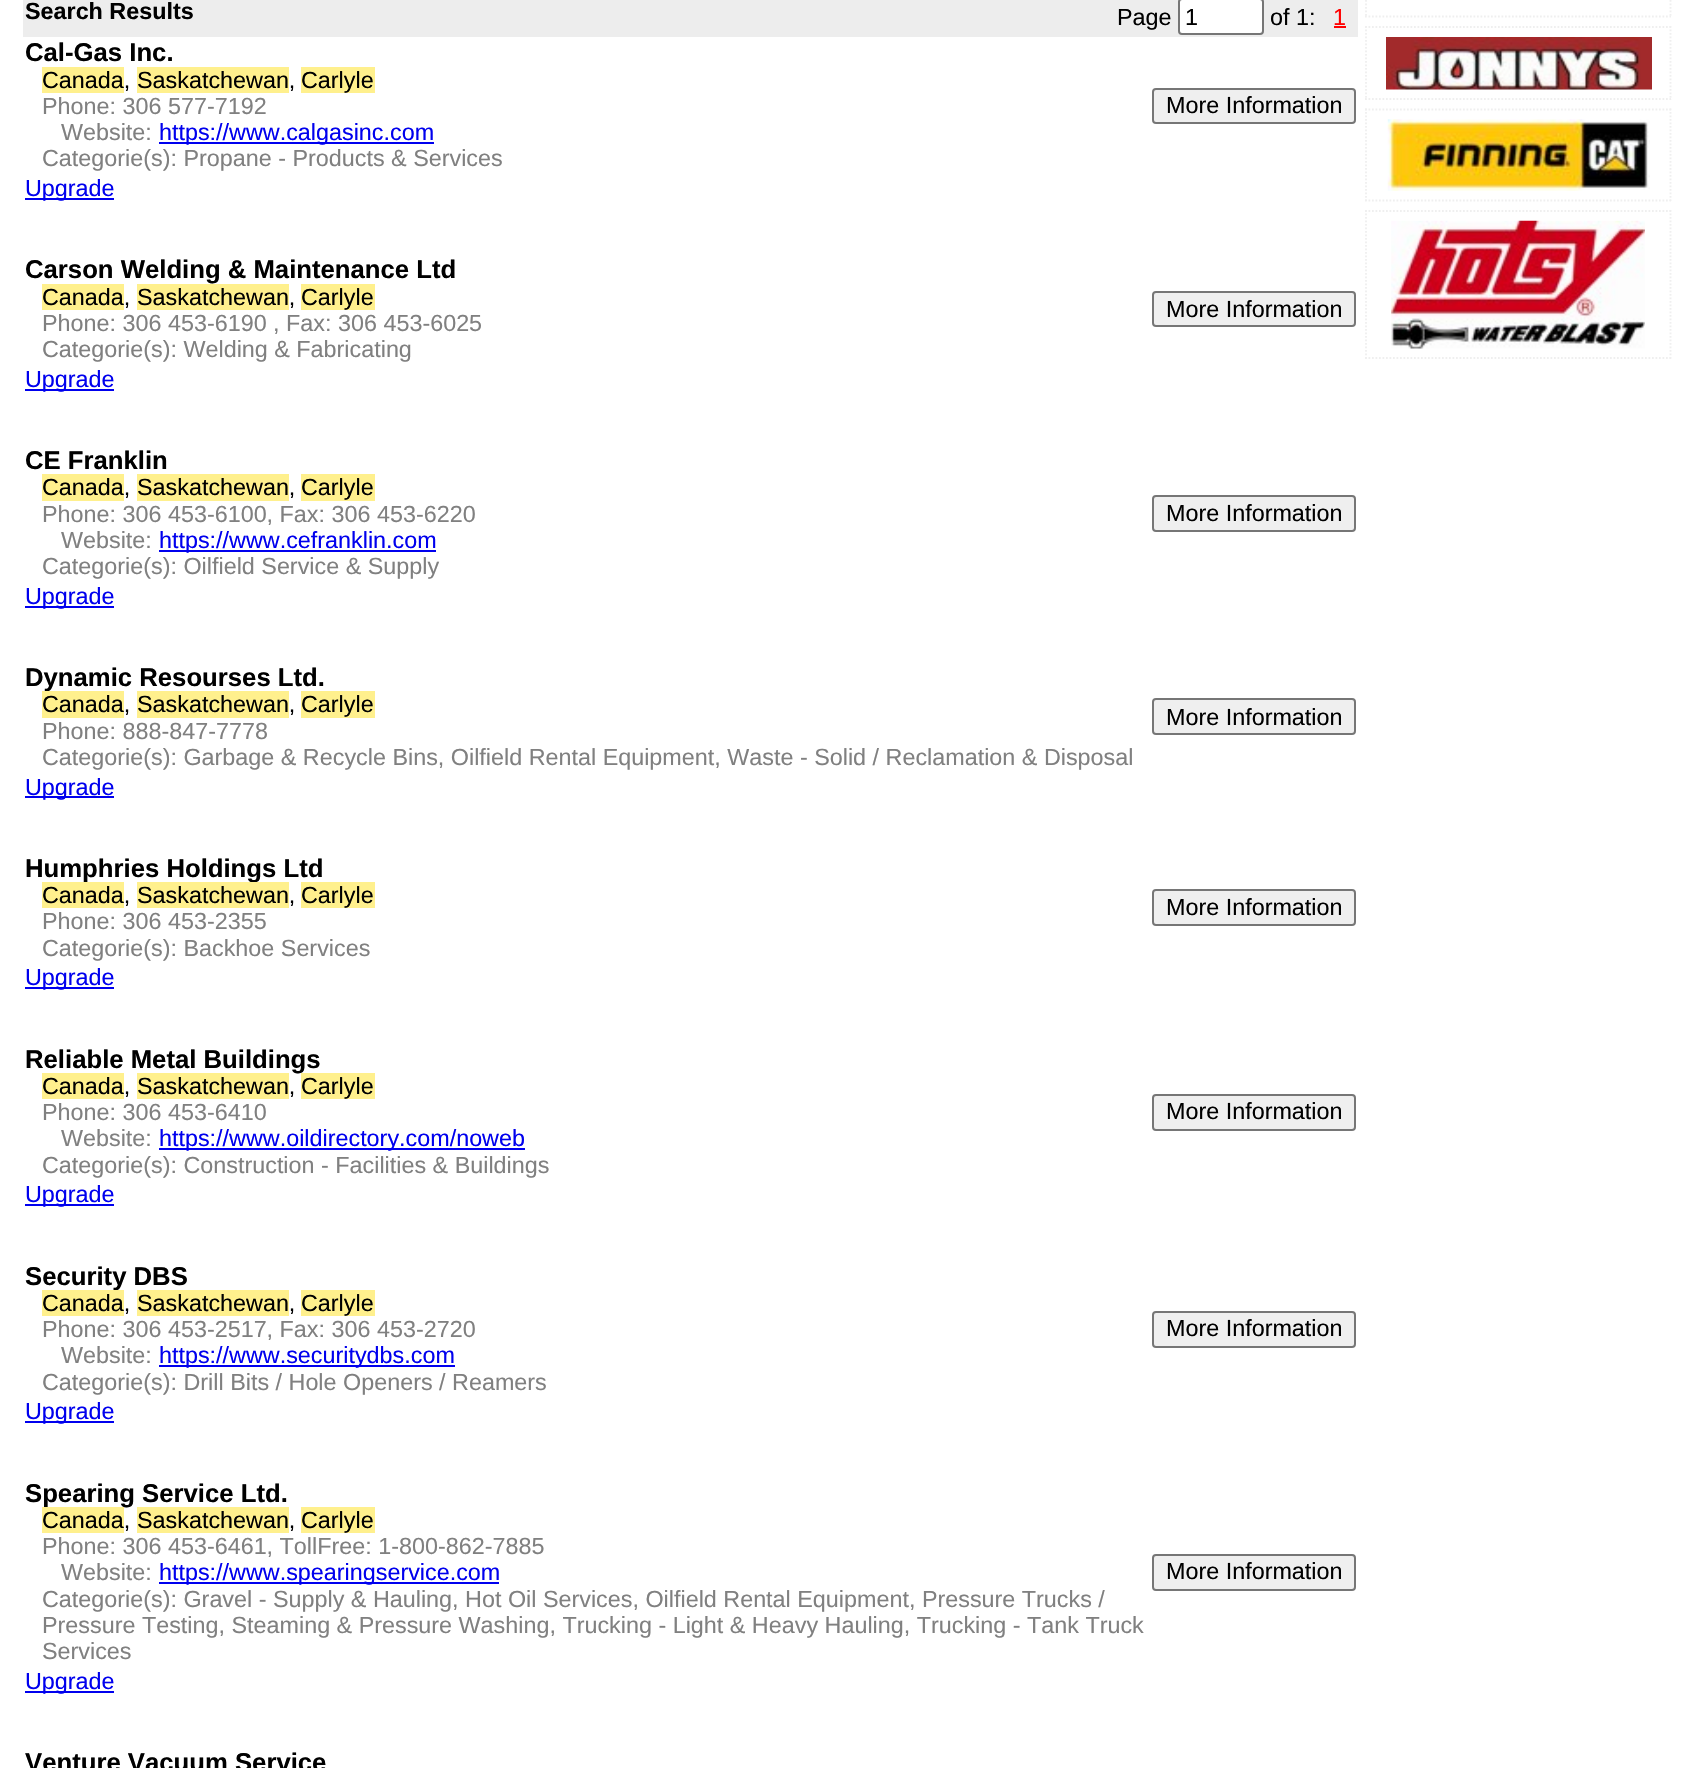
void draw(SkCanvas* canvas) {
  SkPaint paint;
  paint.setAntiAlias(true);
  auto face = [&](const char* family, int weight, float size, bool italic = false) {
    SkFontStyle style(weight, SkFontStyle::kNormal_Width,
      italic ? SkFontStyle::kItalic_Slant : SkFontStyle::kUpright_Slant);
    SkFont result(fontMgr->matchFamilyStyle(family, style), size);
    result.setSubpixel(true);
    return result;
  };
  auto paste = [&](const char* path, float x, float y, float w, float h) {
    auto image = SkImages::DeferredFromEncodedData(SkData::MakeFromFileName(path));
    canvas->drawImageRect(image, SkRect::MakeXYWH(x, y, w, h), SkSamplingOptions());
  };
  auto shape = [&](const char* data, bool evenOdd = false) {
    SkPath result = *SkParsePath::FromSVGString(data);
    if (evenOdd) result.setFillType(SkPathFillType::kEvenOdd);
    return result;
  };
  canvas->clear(0xffffffff);
  paint.setColor(0xffededed);
  canvas->drawRect(SkRect::MakeXYWH(23, 0, 1335, 37), paint);
  paint.setColor(0xffffffff);
  canvas->drawRoundRect(SkRect::MakeXYWH(1179, -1, 84, 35), 3, 3, paint);
  paint.setStroke(true);
  paint.setStrokeWidth(2);
  paint.setColor(0xff767676);
  canvas->drawRoundRect(SkRect::MakeXYWH(1179, -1, 84, 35), 3, 3, paint);
  paint.setStroke(false);
  {
    const struct { float x, y, w, h; SkColor color; } items[] = {
      {1334, 26, 12, 2, 0xffff0000},
      {42, 67, 82, 26, 0xfffff08d},
      {137, 67, 152, 26, 0xfffff08d},
      {301, 67, 74, 26, 0xfffff08d},
      {159, 142, 275, 2, 0xff0000ee},
    };
    for (auto [x, y, w, h, color] : items) {
      paint.setColor(color);
      canvas->drawRect(SkRect::MakeXYWH(x, y, w, h), paint);
    }
  }
  paint.setColor(0xffefefef);
  canvas->drawRoundRect(SkRect::MakeXYWH(1153, 89, 202, 34), 3, 3, paint);
  paint.setStroke(true);
  paint.setColor(0xff767676);
  canvas->drawRoundRect(SkRect::MakeXYWH(1153, 89, 202, 34), 3, 3, paint);
  paint.setStroke(false);
  {
    const struct { float x, y, w, h; SkColor color; } items[] = {
      {25, 198, 89, 2, 0xff0000ee},
      {42, 284, 82, 26, 0xfffff08d},
      {137, 284, 152, 26, 0xfffff08d},
      {301, 284, 74, 26, 0xfffff08d},
    };
    for (auto [x, y, w, h, color] : items) {
      paint.setColor(color);
      canvas->drawRect(SkRect::MakeXYWH(x, y, w, h), paint);
    }
  }
  paint.setColor(0xffefefef);
  canvas->drawRoundRect(SkRect::MakeXYWH(1153, 292, 202, 34), 3, 3, paint);
  paint.setStroke(true);
  paint.setColor(0xff767676);
  canvas->drawRoundRect(SkRect::MakeXYWH(1153, 292, 202, 34), 3, 3, paint);
  paint.setStroke(false);
  {
    const struct { float x, y, w, h; SkColor color; } items[] = {
      {25, 389, 89, 2, 0xff0000ee},
      {42, 474, 82, 27, 0xfffff08d},
      {137, 474, 152, 27, 0xfffff08d},
      {301, 474, 74, 27, 0xfffff08d},
      {159, 550, 277, 2, 0xff0000ee},
    };
    for (auto [x, y, w, h, color] : items) {
      paint.setColor(color);
      canvas->drawRect(SkRect::MakeXYWH(x, y, w, h), paint);
    }
  }
  paint.setColor(0xffefefef);
  canvas->drawRoundRect(SkRect::MakeXYWH(1153, 496, 202, 35), 3, 3, paint);
  paint.setStroke(true);
  paint.setColor(0xff767676);
  canvas->drawRoundRect(SkRect::MakeXYWH(1153, 496, 202, 35), 3, 3, paint);
  paint.setStroke(false);
  paint.setColor(0xff0000ee);
  canvas->drawRect(SkRect::MakeXYWH(25, 606, 89, 2), paint);
  paint.setColor(0xffefefef);
  canvas->drawRoundRect(SkRect::MakeXYWH(1153, 699, 202, 35), 3, 3, paint);
  paint.setStroke(true);
  paint.setColor(0xff767676);
  canvas->drawRoundRect(SkRect::MakeXYWH(1153, 699, 202, 35), 3, 3, paint);
  paint.setStroke(false);
  paint.setColor(0xff0000ee);
  canvas->drawRect(SkRect::MakeXYWH(25, 796, 89, 2), paint);
  paint.setColor(0xffefefef);
  canvas->drawRoundRect(SkRect::MakeXYWH(1153, 890, 202, 35), 3, 3, paint);
  paint.setStroke(true);
  paint.setColor(0xff767676);
  canvas->drawRoundRect(SkRect::MakeXYWH(1153, 890, 202, 35), 3, 3, paint);
  paint.setStroke(false);
  paint.setColor(0xff0000ee);
  canvas->drawRect(SkRect::MakeXYWH(25, 987, 89, 2), paint);
  canvas->drawRect(SkRect::MakeXYWH(159, 1148, 366, 2), paint);
  paint.setColor(0xffefefef);
  canvas->drawRoundRect(SkRect::MakeXYWH(1153, 1095, 202, 35), 3, 3, paint);
  paint.setStroke(true);
  paint.setColor(0xff767676);
  canvas->drawRoundRect(SkRect::MakeXYWH(1153, 1095, 202, 35), 3, 3, paint);
  paint.setStroke(false);
  {
    const struct { float x, y, w, h; SkColor color; } items[] = {
      {25, 1204, 89, 2, 0xff0000ee},
      {301, 1290, 74, 26, 0xfffff08d},
      {159, 1365, 296, 2, 0xff0000ee},
    };
    for (auto [x, y, w, h, color] : items) {
      paint.setColor(color);
      canvas->drawRect(SkRect::MakeXYWH(x, y, w, h), paint);
    }
  }
  paint.setColor(0xffefefef);
  canvas->drawRoundRect(SkRect::MakeXYWH(1153, 1312, 202, 35), 3, 3, paint);
  paint.setStroke(true);
  paint.setColor(0xff767676);
  canvas->drawRoundRect(SkRect::MakeXYWH(1153, 1312, 202, 35), 3, 3, paint);
  paint.setStroke(false);
  {
    const struct { float x, y, w, h; SkColor color; } items[] = {
      {25, 1421, 89, 2, 0xff0000ee},
      {301, 1507, 74, 26, 0xfffff08d},
      {159, 1582, 340, 2, 0xff0000ee},
    };
    for (auto [x, y, w, h, color] : items) {
      paint.setColor(color);
      canvas->drawRect(SkRect::MakeXYWH(x, y, w, h), paint);
    }
  }
  paint.setColor(0xffefefef);
  canvas->drawRoundRect(SkRect::MakeXYWH(1153, 1555, 202, 35), 3, 3, paint);
  paint.setStroke(true);
  paint.setColor(0xff767676);
  canvas->drawRoundRect(SkRect::MakeXYWH(1153, 1555, 202, 35), 3, 3, paint);
  paint.setStroke(false);
  paint.setColor(0xff0000ee);
  canvas->drawRect(SkRect::MakeXYWH(25, 1691, 89, 2), paint);
  paint.setStroke(true);
  paint.setStrokeWidth(1.8f);
  paint.setColor(0xffefefef);
  paint.setPathEffect(SkDashPathEffect::Make({{1.75f, 1.75f}}, 0));
  canvas->drawPath(shape("M1670.5-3.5V17.5"), paint);
  paint.setPathEffect(nullptr);
  paint.setPathEffect(SkDashPathEffect::Make({{1.75f, 1.75f}}, 0));
  canvas->drawPath(shape("M1365 16.5H1671"), paint);
  paint.setPathEffect(nullptr);
  paint.setPathEffect(SkDashPathEffect::Make({{1.75f, 1.75f}}, 0));
  canvas->drawPath(shape("M1366-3.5V17.5"), paint);
  paint.setPathEffect(nullptr);
  paint.setPathEffect(SkDashPathEffect::Make({{1.75f, 1.75f}}, 0));
  canvas->drawPath(shape("M1365 27H1671"), paint);
  paint.setPathEffect(nullptr);
  paint.setPathEffect(SkDashPathEffect::Make({{1.75f, 1.75f}}, 0));
  canvas->drawPath(shape("M1670.5 26V100"), paint);
  paint.setPathEffect(nullptr);
  paint.setPathEffect(SkDashPathEffect::Make({{1.75f, 1.75f}}, 0));
  canvas->drawPath(shape("M1365 99H1671"), paint);
  paint.setPathEffect(nullptr);
  paint.setPathEffect(SkDashPathEffect::Make({{1.75f, 1.75f}}, 0));
  canvas->drawPath(shape("M1366 26V100"), paint);
  paint.setPathEffect(nullptr);
  paste("img/1.png", 1386, 37, 266, 53);
  paint.setPathEffect(SkDashPathEffect::Make({{1.75f, 1.75f}}, 0));
  canvas->drawPath(shape("M1365 109.5H1671"), paint);
  paint.setPathEffect(nullptr);
  paint.setPathEffect(SkDashPathEffect::Make({{1.75f, 1.75f}}, 0));
  canvas->drawPath(shape("M1670.5 108.5V201"), paint);
  paint.setPathEffect(nullptr);
  paint.setPathEffect(SkDashPathEffect::Make({{1.75f, 1.75f}}, 0));
  canvas->drawPath(shape("M1365 200.5H1671"), paint);
  paint.setPathEffect(nullptr);
  paint.setPathEffect(SkDashPathEffect::Make({{1.75f, 1.75f}}, 0));
  canvas->drawPath(shape("M1366 108.5V201"), paint);
  paint.setPathEffect(nullptr);
  paste("img/2.png", 1387, 119, 263, 72);
  paint.setPathEffect(SkDashPathEffect::Make({{1.75f, 1.75f}}, 0));
  canvas->drawPath(shape("M1365 211H1671"), paint);
  paint.setPathEffect(nullptr);
  paint.setPathEffect(SkDashPathEffect::Make({{1.75f, 1.75f}}, 0));
  canvas->drawPath(shape("M1670.5 210V359"), paint);
  paint.setPathEffect(nullptr);
  paint.setPathEffect(SkDashPathEffect::Make({{1.75f, 1.75f}}, 0));
  canvas->drawPath(shape("M1365 358H1671"), paint);
  paint.setPathEffect(nullptr);
  paint.setPathEffect(SkDashPathEffect::Make({{1.75f, 1.75f}}, 0));
  canvas->drawPath(shape("M1366 210V359"), paint);
  paint.setPathEffect(nullptr);
  paste("img/3.png", 1391, 220, 254, 129);
  auto f0 = face("Liberation Sans", 700, 23.35f);
  paint.setStroke(false);
  paint.setColor(0xff000000);
  canvas->drawString("Search Results", 25, 19, f0, paint);
  auto f1 = face("Liberation Sans", 400, 23.35f);
  {
    const struct { const char* s; float x, y; } items[] = {
      {"Page", 1117, 25},
      {"1", 1185, 25},
      {"of 1:", 1270, 25},
    };
    for (auto [s, x, y] : items) {
      canvas->drawString(s, x, y, f1, paint);
    }
  }
  paint.setColor(0xffff0000);
  canvas->drawString("1", 1333, 25, f1, paint);
  auto f2 = face("Liberation Sans", 700, 25.7f);
  paint.setColor(0xff000000);
  canvas->drawString("Cal-Gas Inc.", 25, 61, f2, paint);
  {
    const struct { const char* s; float x, y; } items[] = {
      {"Canada,", 42, 88},
      {"Saskatchewan,", 137, 88},
      {"Carlyle", 301, 88},
    };
    for (auto [s, x, y] : items) {
      canvas->drawString(s, x, y, f1, paint);
    }
  }
  paint.setColor(0xff808080);
  canvas->drawString("Phone: 306 577-7192", 42, 114, f1, paint);
  canvas->drawString("Website:", 61, 140, f1, paint);
  paint.setColor(0xff0000ee);
  canvas->drawString("https://www.calgasinc.com", 159, 140, f1, paint);
  paint.setColor(0xff808080);
  canvas->drawString("Categorie(s): Propane - Products & Services", 42, 166, f1, paint);
  paint.setColor(0xff000000);
  canvas->drawString("More Information", 1166, 113, f1, paint);
  paint.setColor(0xff0000ee);
  canvas->drawString("Upgrade", 25, 196, f1, paint);
  paint.setColor(0xff000000);
  canvas->drawString("Carson Welding & Maintenance Ltd", 25, 278, f2, paint);
  {
    const struct { const char* s; float x, y; } items[] = {
      {"Canada,", 42, 305},
      {"Saskatchewan,", 137, 305},
      {"Carlyle", 301, 305},
    };
    for (auto [s, x, y] : items) {
      canvas->drawString(s, x, y, f1, paint);
    }
  }
  paint.setColor(0xff808080);
  canvas->drawString("Phone: 306 453-6190 , Fax: 306 453-6025", 42, 331, f1, paint);
  canvas->drawString("Categorie(s): Welding & Fabricating", 42, 357, f1, paint);
  paint.setColor(0xff000000);
  canvas->drawString("More Information", 1166, 317, f1, paint);
  paint.setColor(0xff0000ee);
  canvas->drawString("Upgrade", 25, 387, f1, paint);
  paint.setColor(0xff000000);
  canvas->drawString("CE Franklin", 25, 469, f2, paint);
  {
    const struct { const char* s; float x, y; } items[] = {
      {"Canada,", 42, 495},
      {"Saskatchewan,", 137, 495},
      {"Carlyle", 301, 495},
    };
    for (auto [s, x, y] : items) {
      canvas->drawString(s, x, y, f1, paint);
    }
  }
  paint.setColor(0xff808080);
  canvas->drawString("Phone: 306 453-6100, Fax: 306 453-6220", 42, 522, f1, paint);
  canvas->drawString("Website:", 61, 548, f1, paint);
  paint.setColor(0xff0000ee);
  canvas->drawString("https://www.cefranklin.com", 159, 548, f1, paint);
  paint.setColor(0xff808080);
  canvas->drawString("Categorie(s): Oilfield Service & Supply", 42, 574, f1, paint);
  paint.setColor(0xff000000);
  canvas->drawString("More Information", 1166, 521, f1, paint);
  paint.setColor(0xff0000ee);
  canvas->drawString("Upgrade", 25, 604, f1, paint);
  paint.setColor(0xff000000);
  canvas->drawString("Dynamic Resourses Ltd.", 25, 686, f2, paint);
  paint.setColor(0xfffff08d);
  canvas->drawRect(SkRect::MakeXYWH(42, 691, 82, 27), paint);
  paint.setColor(0xff000000);
  canvas->drawString("Canada,", 42, 712, f1, paint);
  paint.setColor(0xfffff08d);
  canvas->drawRect(SkRect::MakeXYWH(137, 691, 152, 27), paint);
  paint.setColor(0xff000000);
  canvas->drawString("Saskatchewan,", 137, 712, f1, paint);
  paint.setColor(0xfffff08d);
  canvas->drawRect(SkRect::MakeXYWH(301, 691, 74, 27), paint);
  paint.setColor(0xff000000);
  canvas->drawString("Carlyle", 301, 712, f1, paint);
  paint.setColor(0xff808080);
  canvas->drawString("Phone: 888-847-7778", 42, 739, f1, paint);
  canvas->drawString("Categorie(s): Garbage & Recycle Bins, Oilfield Rental Equipment, Waste - Solid / Reclamation & Disposal", 42, 765, f1, paint);
  paint.setColor(0xff000000);
  canvas->drawString("More Information", 1166, 725, f1, paint);
  paint.setColor(0xff0000ee);
  canvas->drawString("Upgrade", 25, 795, f1, paint);
  paint.setColor(0xff000000);
  canvas->drawString("Humphries Holdings Ltd", 25, 877, f2, paint);
  paint.setColor(0xfffff08d);
  canvas->drawRect(SkRect::MakeXYWH(42, 882, 82, 26), paint);
  paint.setColor(0xff000000);
  canvas->drawString("Canada,", 42, 903, f1, paint);
  paint.setColor(0xfffff08d);
  canvas->drawRect(SkRect::MakeXYWH(137, 882, 152, 26), paint);
  paint.setColor(0xff000000);
  canvas->drawString("Saskatchewan,", 137, 903, f1, paint);
  paint.setColor(0xfffff08d);
  canvas->drawRect(SkRect::MakeXYWH(301, 882, 74, 26), paint);
  paint.setColor(0xff000000);
  canvas->drawString("Carlyle", 301, 903, f1, paint);
  paint.setColor(0xff808080);
  canvas->drawString("Phone: 306 453-2355", 42, 929, f1, paint);
  canvas->drawString("Categorie(s): Backhoe Services", 42, 956, f1, paint);
  paint.setColor(0xff000000);
  canvas->drawString("More Information", 1166, 915, f1, paint);
  paint.setColor(0xff0000ee);
  canvas->drawString("Upgrade", 25, 985, f1, paint);
  paint.setColor(0xff000000);
  canvas->drawString("Reliable Metal Buildings", 25, 1068, f2, paint);
  paint.setColor(0xfffff08d);
  canvas->drawRect(SkRect::MakeXYWH(42, 1073, 82, 26), paint);
  paint.setColor(0xff000000);
  canvas->drawString("Canada,", 42, 1094, f1, paint);
  paint.setColor(0xfffff08d);
  canvas->drawRect(SkRect::MakeXYWH(137, 1073, 152, 26), paint);
  paint.setColor(0xff000000);
  canvas->drawString("Saskatchewan,", 137, 1094, f1, paint);
  paint.setColor(0xfffff08d);
  canvas->drawRect(SkRect::MakeXYWH(301, 1073, 74, 26), paint);
  paint.setColor(0xff000000);
  canvas->drawString("Carlyle", 301, 1094, f1, paint);
  paint.setColor(0xff808080);
  canvas->drawString("Phone: 306 453-6410", 42, 1120, f1, paint);
  canvas->drawString("Website:", 61, 1146, f1, paint);
  paint.setColor(0xff0000ee);
  canvas->drawString("https://www.oildirectory.com/noweb", 159, 1146, f1, paint);
  paint.setColor(0xff808080);
  canvas->drawString("Categorie(s): Construction - Facilities & Buildings", 42, 1173, f1, paint);
  paint.setColor(0xff000000);
  canvas->drawString("More Information", 1166, 1119, f1, paint);
  paint.setColor(0xff0000ee);
  canvas->drawString("Upgrade", 25, 1202, f1, paint);
  paint.setColor(0xff000000);
  canvas->drawString("Security DBS", 25, 1285, f2, paint);
  paint.setColor(0xfffff08d);
  canvas->drawRect(SkRect::MakeXYWH(42, 1290, 82, 26), paint);
  paint.setColor(0xff000000);
  canvas->drawString("Canada,", 42, 1311, f1, paint);
  paint.setColor(0xfffff08d);
  canvas->drawRect(SkRect::MakeXYWH(137, 1290, 152, 26), paint);
  paint.setColor(0xff000000);
  canvas->drawString("Saskatchewan,", 137, 1311, f1, paint);
  canvas->drawString("Carlyle", 301, 1311, f1, paint);
  paint.setColor(0xff808080);
  canvas->drawString("Phone: 306 453-2517, Fax: 306 453-2720", 42, 1337, f1, paint);
  canvas->drawString("Website:", 61, 1363, f1, paint);
  paint.setColor(0xff0000ee);
  canvas->drawString("https://www.securitydbs.com", 159, 1363, f1, paint);
  paint.setColor(0xff808080);
  canvas->drawString("Categorie(s): Drill Bits / Hole Openers / Reamers", 42, 1390, f1, paint);
  paint.setColor(0xff000000);
  canvas->drawString("More Information", 1166, 1336, f1, paint);
  paint.setColor(0xff0000ee);
  canvas->drawString("Upgrade", 25, 1419, f1, paint);
  paint.setColor(0xff000000);
  canvas->drawString("Spearing Service Ltd.", 25, 1502, f2, paint);
  paint.setColor(0xfffff08d);
  canvas->drawRect(SkRect::MakeXYWH(42, 1507, 82, 26), paint);
  paint.setColor(0xff000000);
  canvas->drawString("Canada,", 42, 1528, f1, paint);
  paint.setColor(0xfffff08d);
  canvas->drawRect(SkRect::MakeXYWH(137, 1507, 152, 26), paint);
  paint.setColor(0xff000000);
  canvas->drawString("Saskatchewan,", 137, 1528, f1, paint);
  canvas->drawString("Carlyle", 301, 1528, f1, paint);
  paint.setColor(0xff808080);
  canvas->drawString("Phone: 306 453-6461, TollFree: 1-800-862-7885", 42, 1554, f1, paint);
  canvas->drawString("Website:", 61, 1580, f1, paint);
  paint.setColor(0xff0000ee);
  canvas->drawString("https://www.spearingservice.com", 159, 1580, f1, paint);
  paint.setColor(0xff808080);
  {
    const struct { const char* s; float x, y; } items[] = {
      {"Categorie(s): Gravel - Supply & Hauling, Hot Oil Services, Oilfield Rental Equipment, Pressure Trucks /", 42, 1607},
      {"Pressure Testing, Steaming & Pressure Washing, Trucking - Light & Heavy Hauling, Trucking - Tank Truck", 42, 1633},
      {"Services", 42, 1659},
    };
    for (auto [s, x, y] : items) {
      canvas->drawString(s, x, y, f1, paint);
    }
  }
  paint.setColor(0xff000000);
  canvas->drawString("More Information", 1166, 1579, f1, paint);
  paint.setColor(0xff0000ee);
  canvas->drawString("Upgrade", 25, 1689, f1, paint);
  paint.setColor(0xff000000);
  canvas->drawString("Venture Vacuum Service", 25, 1771, f2, paint);
}
